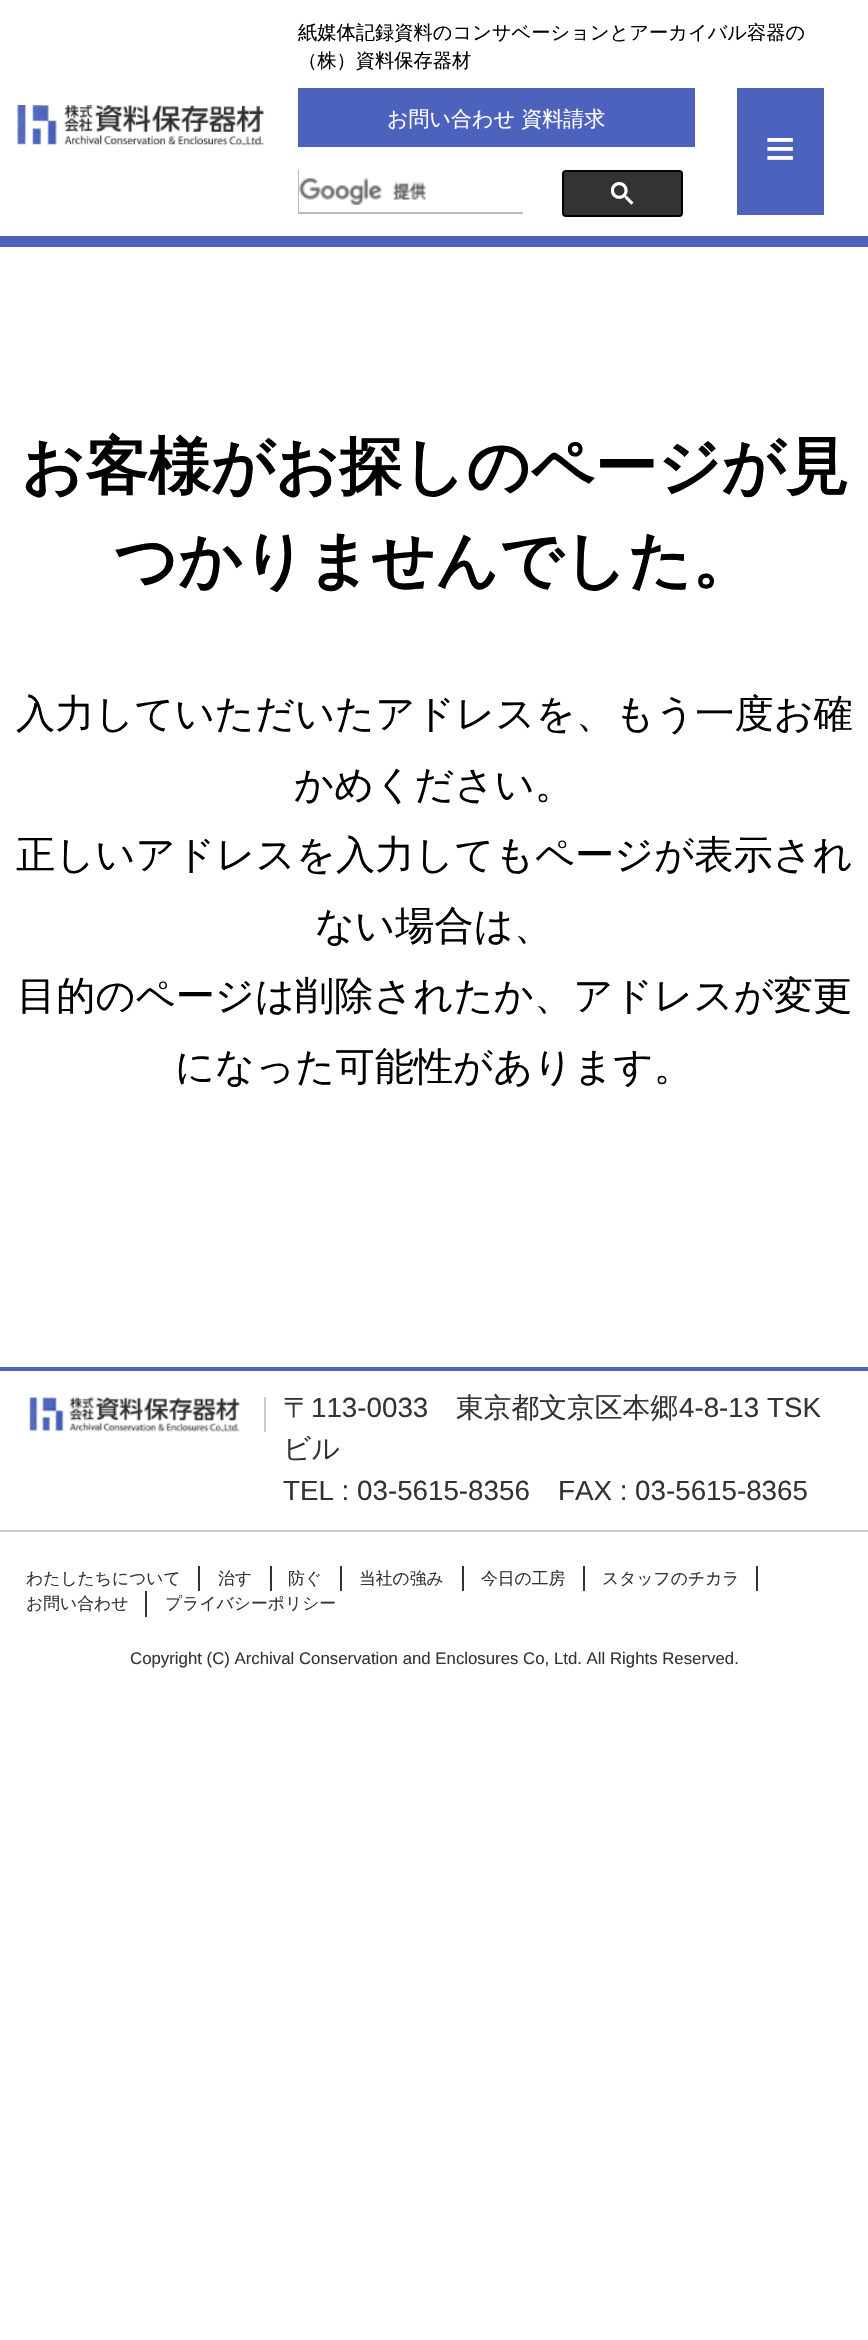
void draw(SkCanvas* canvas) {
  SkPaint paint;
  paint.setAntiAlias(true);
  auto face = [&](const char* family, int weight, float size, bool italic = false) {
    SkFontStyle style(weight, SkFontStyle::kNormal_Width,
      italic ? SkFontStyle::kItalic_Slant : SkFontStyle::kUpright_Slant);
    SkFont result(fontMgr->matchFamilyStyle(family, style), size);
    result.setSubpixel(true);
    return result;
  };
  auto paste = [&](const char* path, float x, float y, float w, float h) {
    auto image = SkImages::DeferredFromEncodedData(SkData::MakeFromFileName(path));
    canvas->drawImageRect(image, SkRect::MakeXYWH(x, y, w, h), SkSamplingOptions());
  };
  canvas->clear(0xffffffff);
  paint.setColor(0xff4d62bd);
  canvas->drawRect(SkRect::MakeXYWH(0, 236, 868, 11), paint);
  paste("img/1.png", 17, 105, 248, 41);
  canvas->drawRect(SkRect::MakeXYWH(298, 88, 397, 59), paint);
  paint.setStroke(true);
  paint.setStrokeWidth(2);
  paint.setColor(0xffbbbbbb);
  canvas->drawRect(SkRect::MakeXYWH(299, 171, 223, 42), paint);
  paint.setStroke(false);
  paint.setColor(0xffffffff);
  canvas->drawRect(SkRect::MakeXYWH(299, 170, 224, 42), paint);
  paste("img/2.png", 299, 178, 128, 27);
  paint.setColor(0xff333333);
  canvas->drawRoundRect(SkRect::MakeXYWH(563, 171, 119, 45), 3, 3, paint);
  paint.setStroke(true);
  paint.setColor(0xff000000);
  canvas->drawRoundRect(SkRect::MakeXYWH(563, 171, 119, 45), 3, 3, paint);
  paste("img/3.png", 611, 182, 23, 23);
  paint.setStroke(false);
  {
    const struct { float x, y, w, h; SkColor color; } items[] = {
      {0, 1367, 868, 4, 0xff4d62bd},
      {0, 1530, 868, 2, 0xffcccccc},
      {264, 1397, 2, 35, 0xffcccccc},
    };
    for (auto [x, y, w, h, color] : items) {
      paint.setColor(color);
      canvas->drawRect(SkRect::MakeXYWH(x, y, w, h), paint);
    }
  }
  paste("img/4.png", 29, 1396, 211, 36);
  {
    const struct { float x, y, w, h; SkColor color; } items[] = {
      {198, 1566, 2, 25, 0xff333333},
      {270, 1566, 2, 25, 0xff333333},
      {340, 1566, 2, 25, 0xff333333},
      {462, 1566, 2, 25, 0xff333333},
      {583, 1566, 2, 25, 0xff333333},
      {756, 1566, 2, 25, 0xff333333},
      {145, 1591, 2, 26, 0xff333333},
      {737, 88, 87, 127, 0xff4d62bd},
    };
    for (auto [x, y, w, h, color] : items) {
      paint.setColor(color);
      canvas->drawRect(SkRect::MakeXYWH(x, y, w, h), paint);
    }
  }
  auto f0 = face("WenQuanYi Zen Hei", 500, 19.25f);
  paint.setColor(0xff000000);
  canvas->drawString("紙媒体記録資料のコンサベーションとアーカイバル容器の", 298, 39, f0, paint);
  canvas->drawString("（株）資料保存器材", 298, 67, f0, paint);
  auto f1 = face("WenQuanYi Zen Hei", 500, 21);
  paint.setColor(0xffffffff);
  canvas->drawString("お問い合わせ 資料請求", 387, 126, f1, paint);
  auto f2 = face("WenQuanYi Zen Hei", 700, 62.75f);
  paint.setColor(0xff000000);
  canvas->drawString("お客様がお探しのページが見", 21, 488, f2, paint);
  canvas->drawString("つかりませんでした。", 114, 582, f2, paint);
  auto f3 = face("WenQuanYi Zen Hei", 500, 39.2f);
  {
    const struct { const char* s; float x, y; } items[] = {
      {"入力していただいたアドレスを、もう一度お確", 16, 727},
      {"かめください。", 294, 798},
      {"正しいアドレスを入力してもページが表示され", 16, 868},
      {"ない場合は、", 315, 939},
      {"目的のページは削除されたか、アドレスが変更", 17, 1009},
      {"になった可能性があります。", 175, 1080},
    };
    for (auto [s, x, y] : items) {
      canvas->drawString(s, x, y, f3, paint);
    }
  }
  auto f4 = face("WenQuanYi Zen Hei", 500, 27.75f);
  paint.setColor(0xff333333);
  canvas->drawString("〒", 283, 1417, f4, paint);
  auto f5 = face("Liberation Sans", 400, 27.75f);
  canvas->drawString("113-0033", 311, 1417, f5, paint);
  canvas->drawString("東京都文京区本郷", 456, 1417, f4, paint);
  canvas->drawString("4-8-13 TSK", 679, 1417, f5, paint);
  canvas->drawString("ビル", 283, 1458, f4, paint);
  canvas->drawString("TEL : 03-5615-8356", 283, 1500, f5, paint);
  canvas->drawString("FAX : 03-5615-8365", 558, 1500, f5, paint);
  auto f6 = face("WenQuanYi Zen Hei", 500, 16.8f);
  {
    const struct { const char* s; float x, y; } items[] = {
      {"わたしたちについて", 26, 1584},
      {"治す", 218, 1584},
      {"防ぐ", 288, 1584},
      {"当社の強み", 359, 1584},
      {"今日の工房", 481, 1584},
      {"スタッフのチカラ", 602, 1584},
      {"お問い合わせ", 26, 1609},
      {"プライバシーポリシー", 165, 1609},
    };
    for (auto [s, x, y] : items) {
      canvas->drawString(s, x, y, f6, paint);
    }
  }
  auto f7 = face("Liberation Sans", 400, 16.8f);
  canvas->drawString("Copyright (C) Archival Conservation and Enclosures Co, Ltd. All Rights Reserved.", 130, 1664, f7, paint);
  auto f8 = face("Liberation Sans", 400, 52);
  paint.setColor(0xffffffff);
  canvas->drawString("≡", 765, 166, f8, paint);
}
